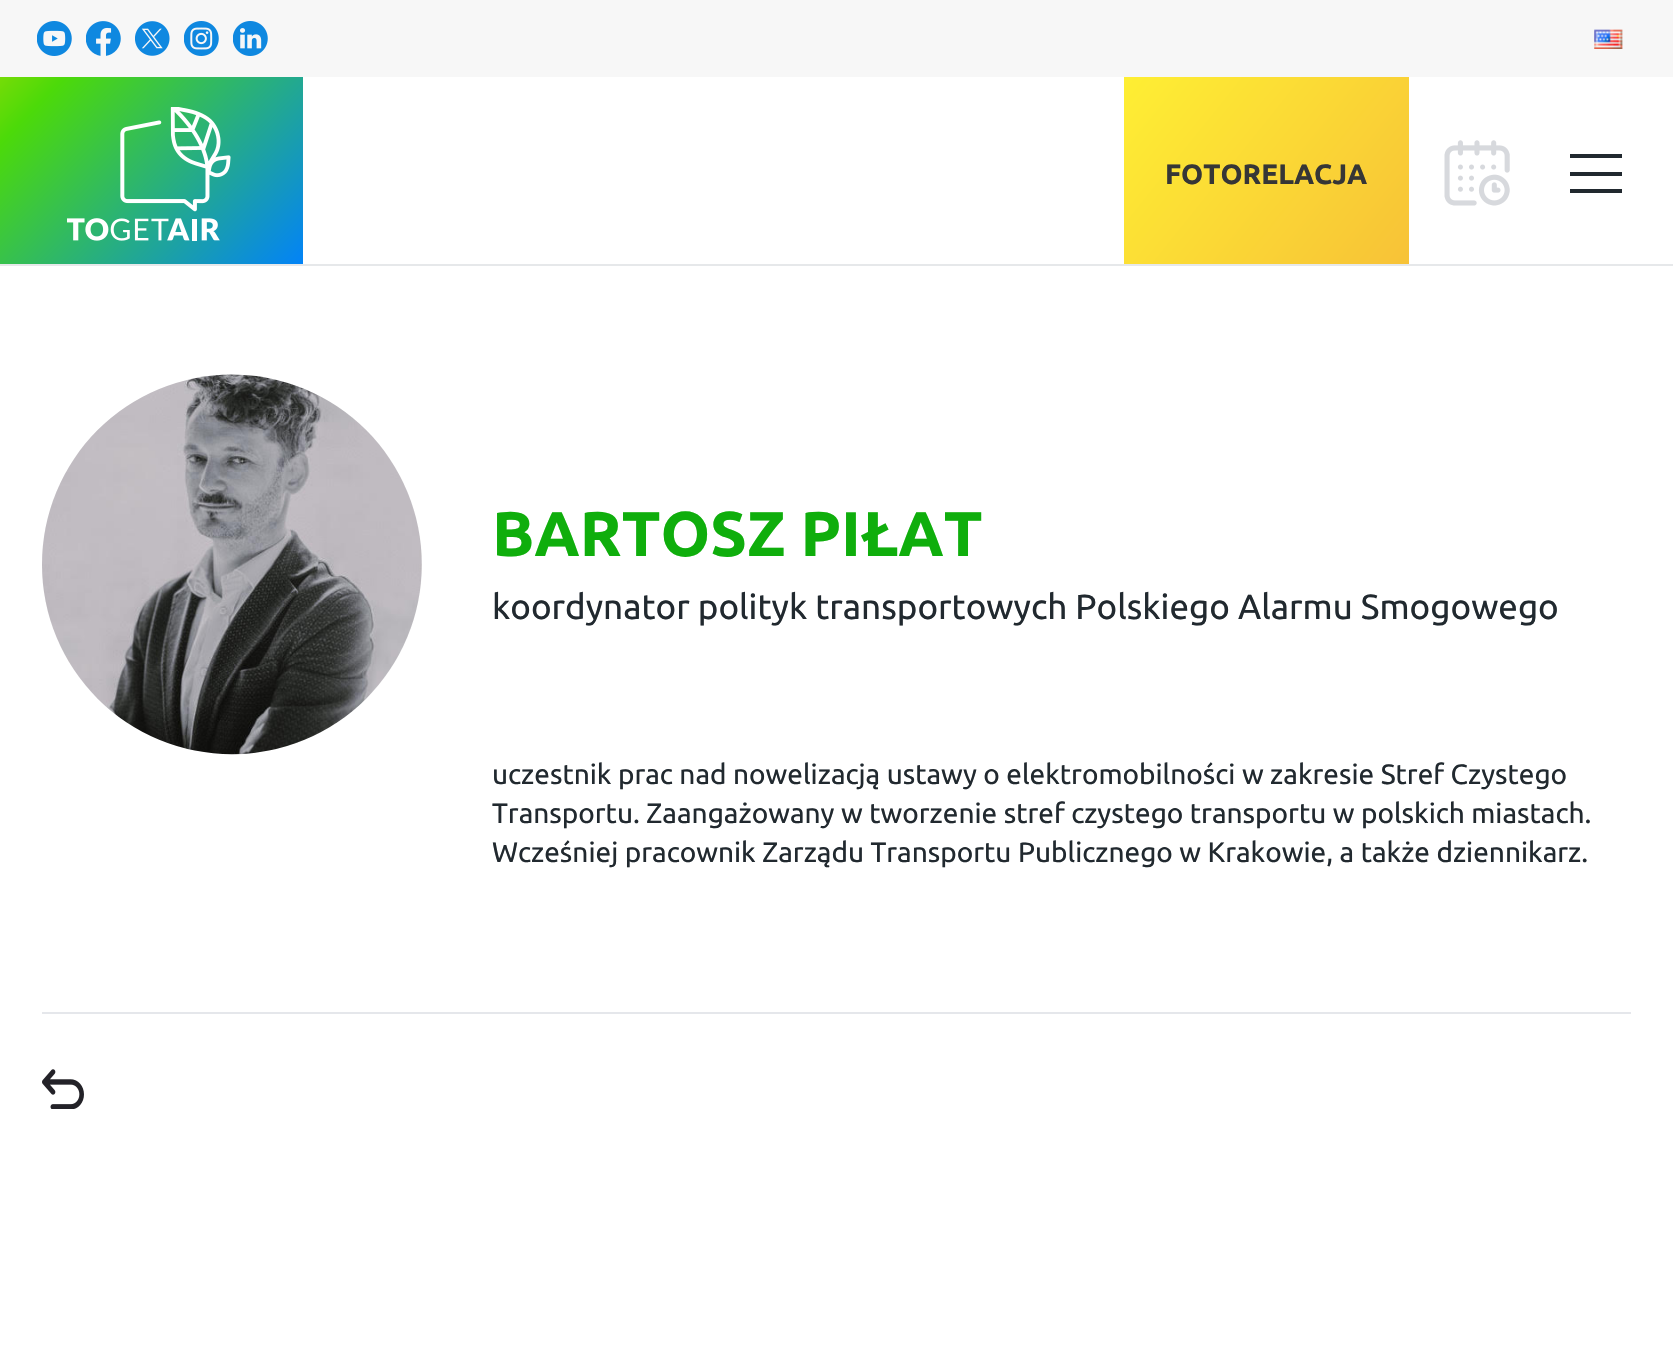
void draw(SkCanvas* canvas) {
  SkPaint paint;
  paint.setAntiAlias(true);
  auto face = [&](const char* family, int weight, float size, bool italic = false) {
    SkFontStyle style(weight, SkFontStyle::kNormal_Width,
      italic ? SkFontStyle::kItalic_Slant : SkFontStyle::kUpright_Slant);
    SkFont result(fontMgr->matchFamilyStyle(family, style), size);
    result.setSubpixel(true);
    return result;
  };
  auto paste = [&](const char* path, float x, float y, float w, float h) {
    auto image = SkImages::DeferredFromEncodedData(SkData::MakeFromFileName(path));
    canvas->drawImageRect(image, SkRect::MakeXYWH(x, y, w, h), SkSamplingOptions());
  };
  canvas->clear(0xffffffff);
  paint.setColor(0xffe6e8ea);
  canvas->drawRect(SkRect::MakeXYWH(0, 264, 1673, 2), paint);
  paint.setColor(0xfff7f7f7);
  canvas->drawRect(SkRect::MakeXYWH(0, 0, 1673, 77), paint);
  paste("img/1.png", 37, 21, 35, 35);
  paste("img/2.png", 86, 21, 35, 35);
  paste("img/3.png", 135, 21, 35, 35);
  paste("img/4.png", 184, 21, 35, 35);
  paste("img/5.png", 233, 21, 35, 35);
  paste("img/6.png", 1594, 29, 29, 20);
  {
    const SkColor colors[] = {0xff0080ff, 0xff4cda09, 0xffffe200};
    const float stops[] = {0, 0.61f, 1};
    const SkPoint ends[] = {{281, 301}, {-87, -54}};
    paint.setShader(SkGradientShader::MakeLinear(ends, colors, stops, 3, SkTileMode::kClamp));
    paint.setAlpha(255);
  }
  canvas->drawRect(SkRect::MakeXYWH(0, 77, 303, 187), paint);
  paste("img/7.png", 67, 107, 164, 134);
  {
    const SkColor colors[] = {0xfffff233, 0xfff3a839};
    const float stops[] = {0, 1};
    const SkPoint ends[] = {{1113, 50}, {1552, 403}};
    paint.setShader(SkGradientShader::MakeLinear(ends, colors, stops, 2, SkTileMode::kClamp));
    paint.setAlpha(255);
  }
  canvas->drawRect(SkRect::MakeXYWH(1124, 77, 285, 187), paint);
  paste("img/8.png", 1444, 140, 66, 66);
  paint.setShader(nullptr);
  {
    const struct { float x, y, w, h; SkColor color; } items[] = {
      {1570, 154, 52, 4, 0xff21292f},
      {1570, 172, 52, 4, 0xff21292f},
      {1570, 189, 52, 4, 0xff21292f},
    };
    for (auto [x, y, w, h, color] : items) {
      paint.setColor(color);
      canvas->drawRect(SkRect::MakeXYWH(x, y, w, h), paint);
    }
  }
  paint.setColor(0xfff7f7f7);
  canvas->drawRoundRect(SkRect::MakeXYWH(42, 375, 380, 379), 189.5f, 189.5f, paint);
  paste("img/9.png", 42, 374, 380, 381);
  paint.setColor(0xffe5e7eb);
  canvas->drawRect(SkRect::MakeXYWH(42, 1012, 1589, 2), paint);
  paste("img/10.png", 42, 1069, 42, 40);
  auto f0 = face("Ubuntu", 700, 28);
  paint.setColor(0xff363636);
  canvas->drawString("FOTORELACJA", 1165, 184, f0, paint);
  auto f1 = face("Ubuntu", 700, 63);
  paint.setColor(0xff0fae0c);
  canvas->drawString("BARTOSZ PIŁAT", 492, 556, f1, paint);
  auto f2 = face("Ubuntu", 400, 35);
  paint.setColor(0xff21292f);
  canvas->drawString("koordynator polityk transportowych Polskiego Alarmu Smogowego", 492, 619, f2, paint);
  auto f3 = face("Ubuntu", 400, 28);
  {
    const struct { const char* s; float x, y; } items[] = {
      {"uczestnik prac nad nowelizacją ustawy o elektromobilności w zakresie Stref Czystego", 492, 784},
      {"Transportu. Zaangażowany w tworzenie stref czystego transportu w polskich miastach.", 492, 823},
      {"Wcześniej pracownik Zarządu Transportu Publicznego w Krakowie, a także dziennikarz.", 492, 862},
    };
    for (auto [s, x, y] : items) {
      canvas->drawString(s, x, y, f3, paint);
    }
  }
}
